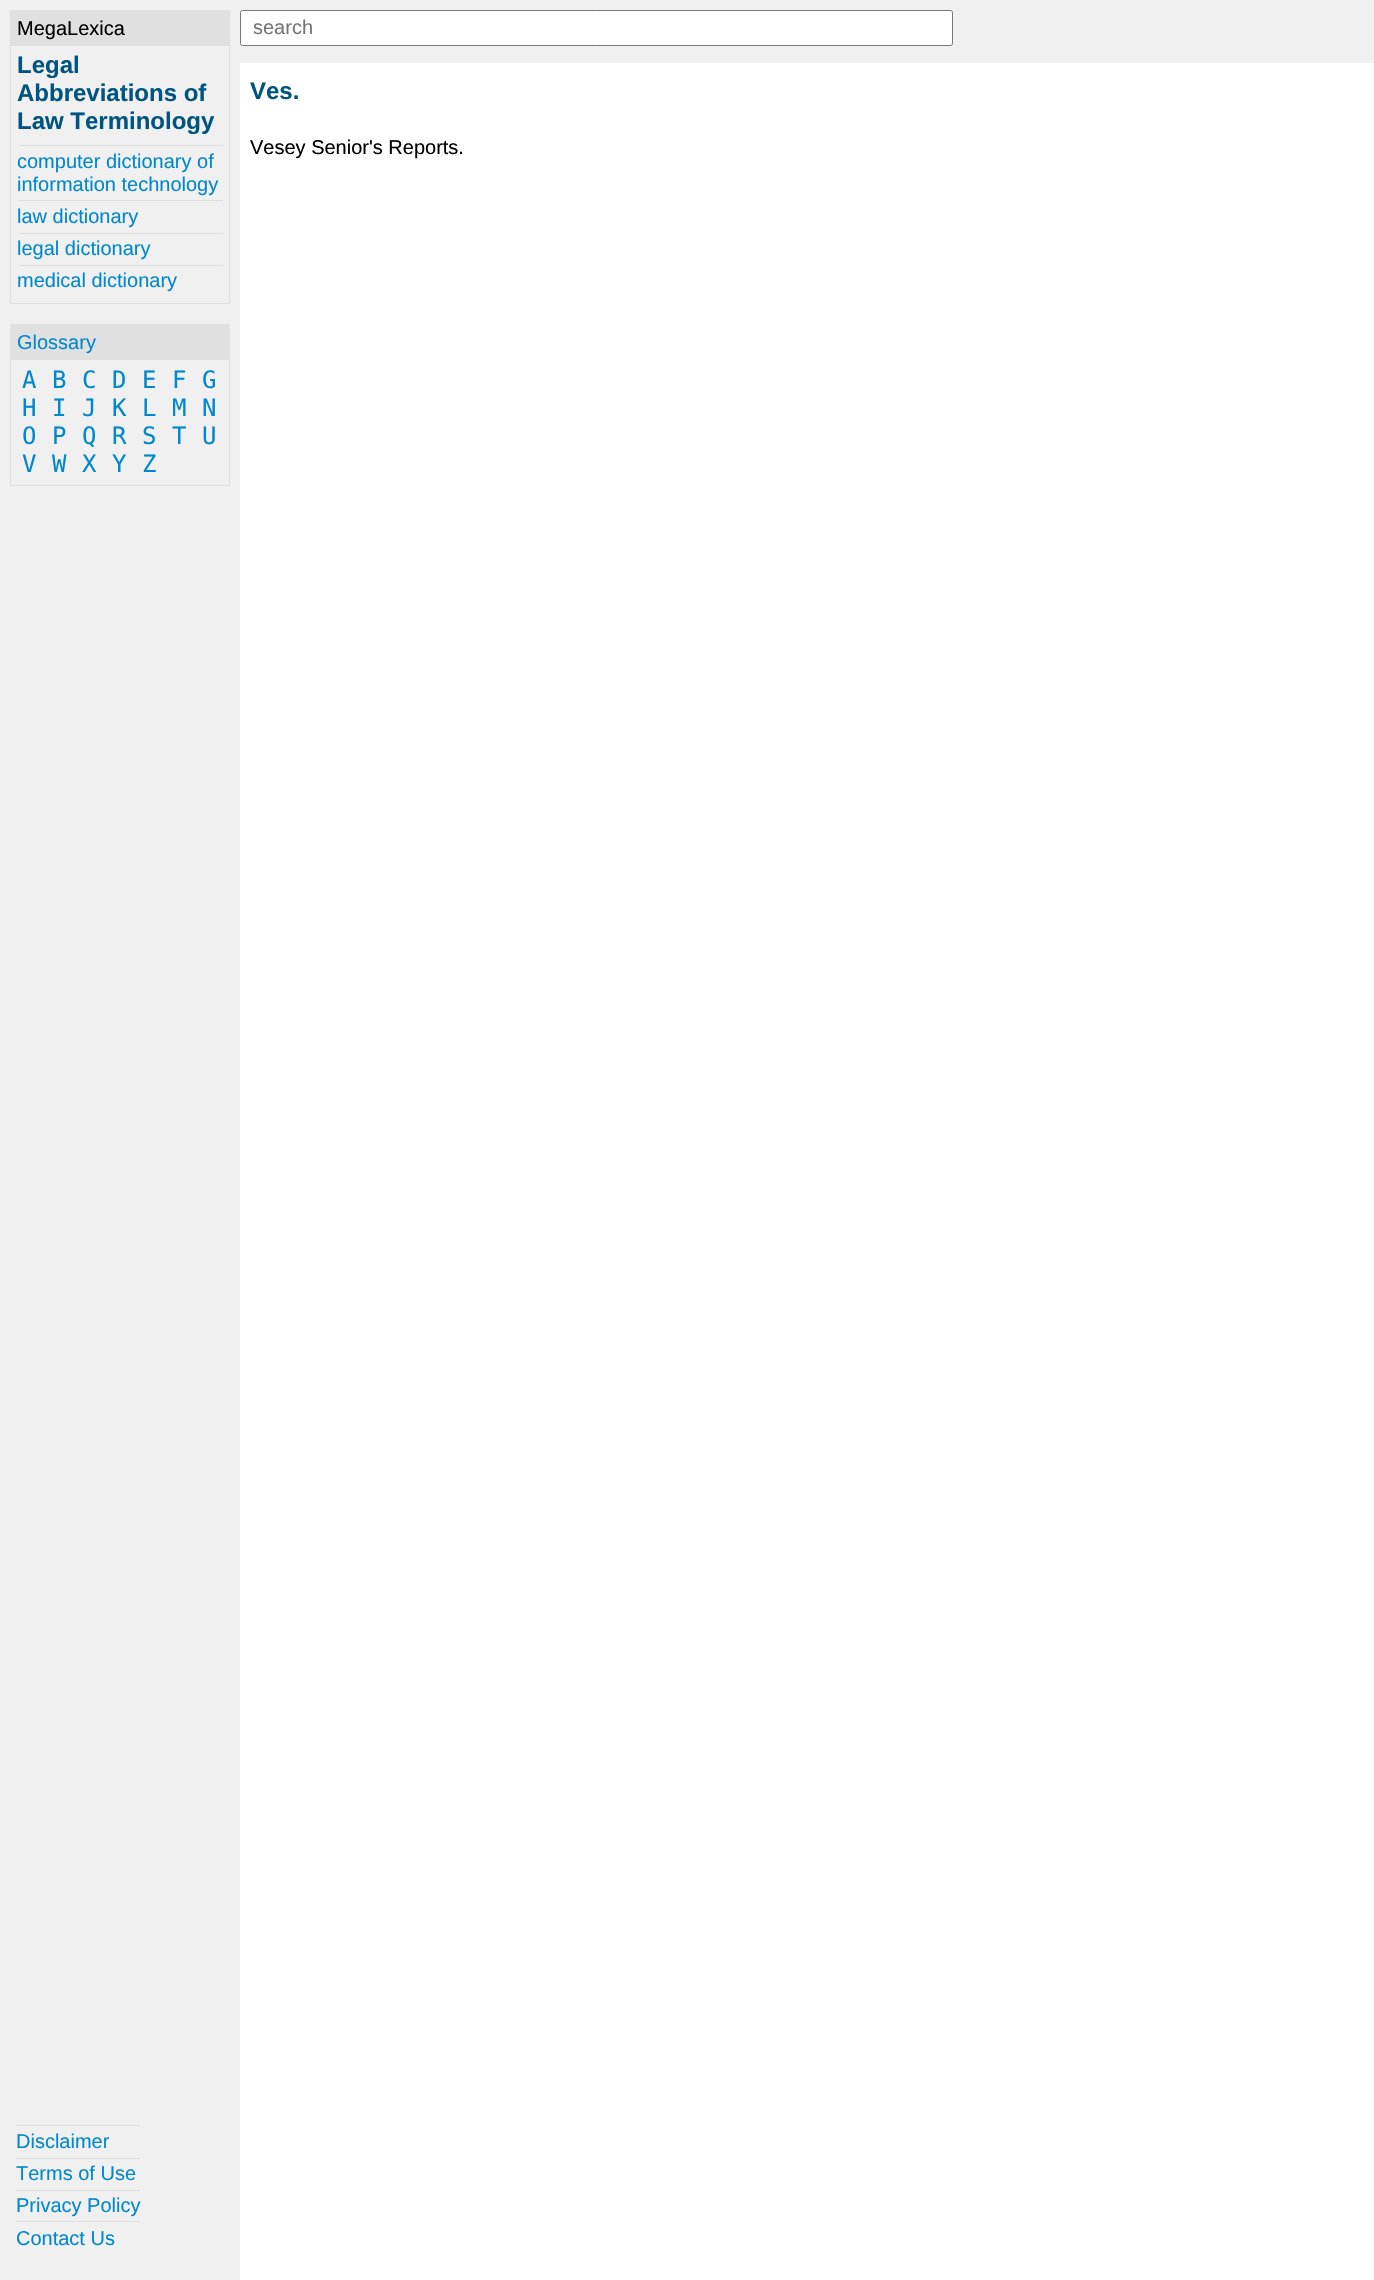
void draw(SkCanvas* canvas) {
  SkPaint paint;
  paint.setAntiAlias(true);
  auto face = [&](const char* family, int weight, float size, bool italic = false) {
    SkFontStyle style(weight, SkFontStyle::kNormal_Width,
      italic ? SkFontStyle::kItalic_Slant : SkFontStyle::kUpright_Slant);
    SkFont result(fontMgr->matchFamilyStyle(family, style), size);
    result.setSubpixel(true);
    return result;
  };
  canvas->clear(0xffffffff);
  paint.setColor(0xfff0f0f0);
  canvas->drawRect(SkRect::MakeXYWH(0, 0, 240, 2280), paint);
  paint.setStroke(true);
  paint.setStrokeWidth(1);
  paint.setColor(0xffe0e0e0);
  canvas->drawRect(SkRect::MakeXYWH(10.5f, 10.5f, 219, 293), paint);
  paint.setStroke(false);
  {
    const struct { float x, y, w, h; SkColor color; } items[] = {
      {11, 11, 218, 35, 0xffe0e0e0},
      {18, 145, 205, 1, 0xffe0e0e0},
      {18, 200, 205, 1, 0xffe0e0e0},
      {18, 233, 205, 1, 0xffe0e0e0},
      {18, 265, 205, 1, 0xffe0e0e0},
    };
    for (auto [x, y, w, h, color] : items) {
      paint.setColor(color);
      canvas->drawRect(SkRect::MakeXYWH(x, y, w, h), paint);
    }
  }
  paint.setStroke(true);
  canvas->drawRect(SkRect::MakeXYWH(10.5f, 324.5f, 219, 161), paint);
  paint.setStroke(false);
  {
    const struct { float x, y, w, h; SkColor color; } items[] = {
      {11, 325, 218, 35, 0xffe0e0e0},
      {16, 2125, 124, 1, 0xffe0e0e0},
      {16, 2158, 124, 1, 0xffe0e0e0},
      {16, 2190, 124, 1, 0xffe0e0e0},
      {16, 2221, 124, 1, 0xffe0e0e0},
      {240, 0, 1134, 63, 0xfff0f0f0},
    };
    for (auto [x, y, w, h, color] : items) {
      paint.setColor(color);
      canvas->drawRect(SkRect::MakeXYWH(x, y, w, h), paint);
    }
  }
  paint.setColor(0xffffffff);
  canvas->drawRoundRect(SkRect::MakeXYWH(240.5f, 10.5f, 712, 35), 2, 2, paint);
  paint.setStroke(true);
  paint.setColor(0xff767676);
  canvas->drawRoundRect(SkRect::MakeXYWH(240.5f, 10.5f, 712, 35), 2, 2, paint);
  auto f0 = face("Liberation Sans", 400, 20);
  paint.setStroke(false);
  paint.setColor(0xff000000);
  canvas->drawString("MegaLexica", 17, 35, f0, paint);
  auto f1 = face("Liberation Sans", 700, 24);
  paint.setColor(0xff005580);
  {
    const struct { const char* s; float x, y; } items[] = {
      {"Legal", 17, 73},
      {"Abbreviations of", 17, 101},
      {"Law Terminology", 17, 129},
    };
    for (auto [s, x, y] : items) {
      canvas->drawString(s, x, y, f1, paint);
    }
  }
  paint.setColor(0xff0088cc);
  {
    const struct { const char* s; float x, y; } items[] = {
      {"computer dictionary of", 17, 168},
      {"information technology", 17, 191},
      {"law dictionary", 17, 223},
      {"legal dictionary", 17, 255},
      {"medical dictionary", 17, 287},
      {"Glossary", 17, 349},
    };
    for (auto [s, x, y] : items) {
      canvas->drawString(s, x, y, f0, paint);
    }
  }
  auto f2 = face("DejaVu Sans Mono", 400, 24);
  {
    const struct { const char* s; float x, y; } items[] = {
      {"A", 22, 388},
      {"B", 52, 388},
      {"C", 82, 388},
      {"D", 112, 388},
      {"E", 142, 388},
      {"F", 172, 388},
      {"G", 202, 388},
      {"H", 22, 416},
      {"I", 52, 416},
      {"J", 82, 416},
      {"K", 112, 416},
      {"L", 142, 416},
      {"M", 172, 416},
      {"N", 202, 416},
      {"O", 22, 444},
      {"P", 52, 444},
      {"Q", 82, 444},
      {"R", 112, 444},
      {"S", 142, 444},
      {"T", 172, 444},
      {"U", 202, 444},
      {"V", 22, 472},
      {"W", 52, 472},
      {"X", 82, 472},
      {"Y", 112, 472},
      {"Z", 142, 472},
    };
    for (auto [s, x, y] : items) {
      canvas->drawString(s, x, y, f2, paint);
    }
  }
  {
    const struct { const char* s; float x, y; } items[] = {
      {"Disclaimer", 16, 2148},
      {"Terms of Use", 16, 2180},
      {"Privacy Policy", 16, 2212},
      {"Contact Us", 16, 2245},
    };
    for (auto [s, x, y] : items) {
      canvas->drawString(s, x, y, f0, paint);
    }
  }
  paint.setColor(0xff757575);
  canvas->drawString("search", 253, 34, f0, paint);
  paint.setColor(0xff005580);
  canvas->drawString("Ves.", 250, 99, f1, paint);
  paint.setColor(0xff000000);
  canvas->drawString("Vesey Senior's Reports.", 250, 154, f0, paint);
}
